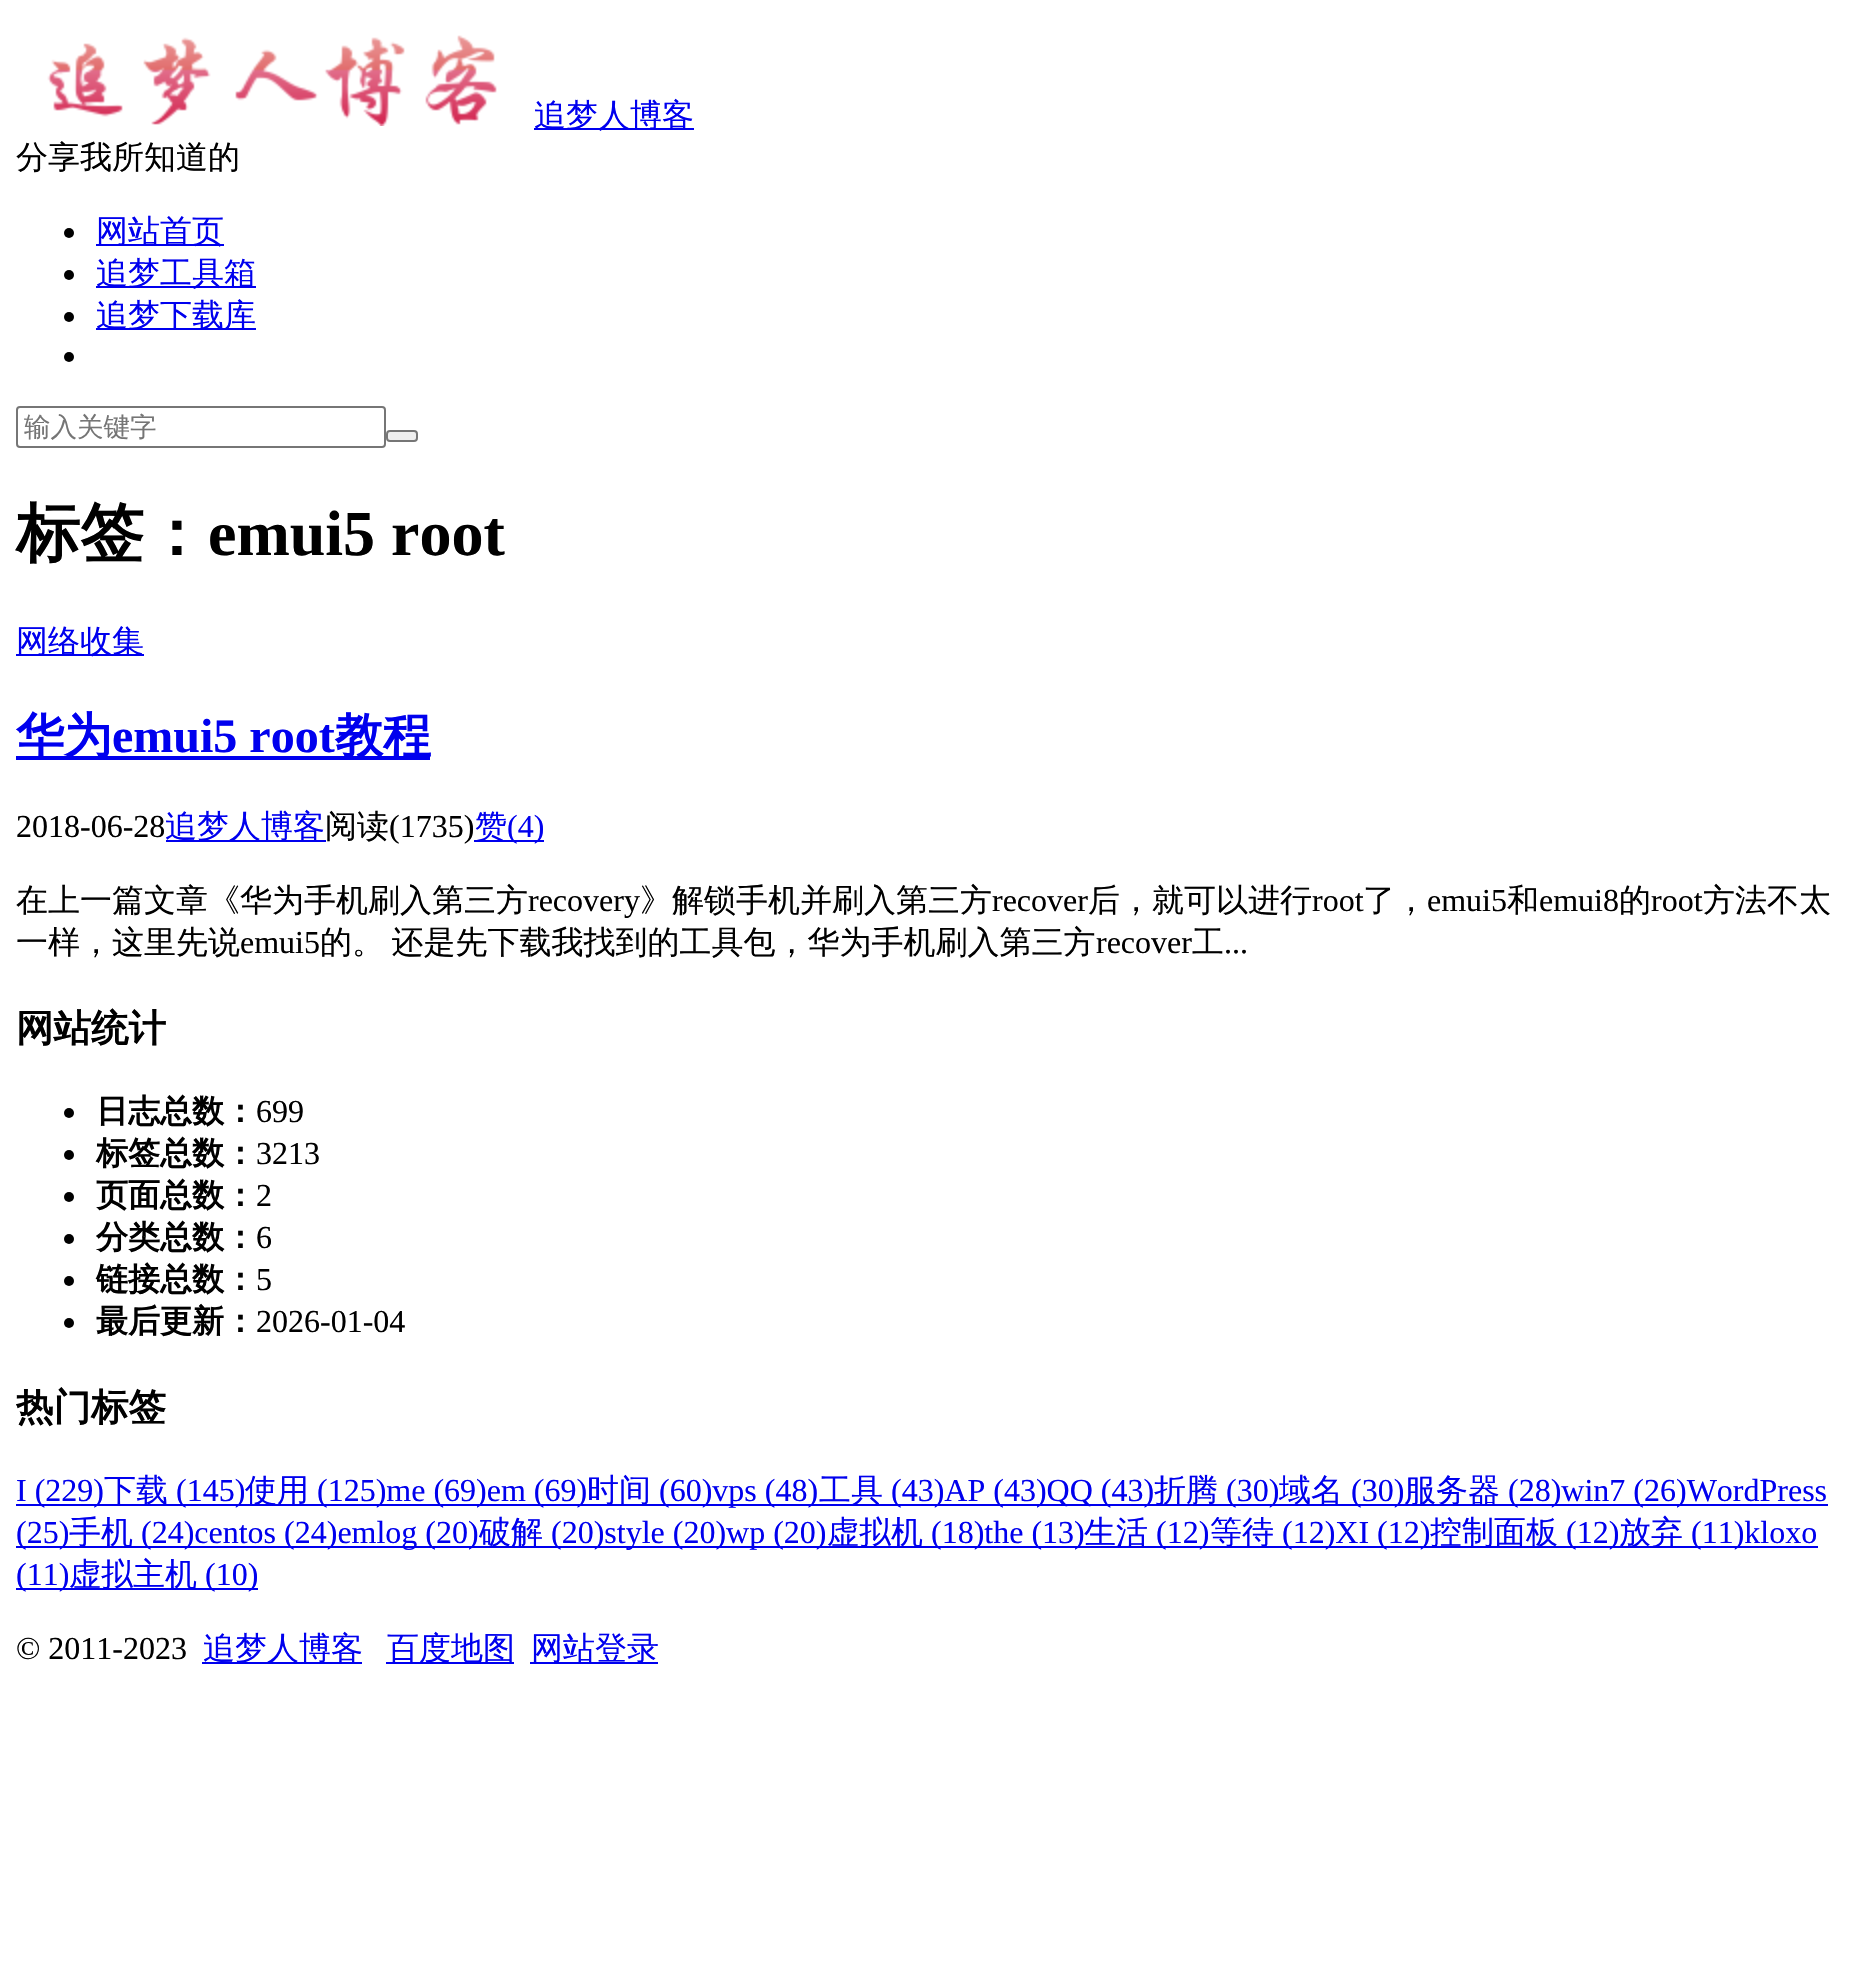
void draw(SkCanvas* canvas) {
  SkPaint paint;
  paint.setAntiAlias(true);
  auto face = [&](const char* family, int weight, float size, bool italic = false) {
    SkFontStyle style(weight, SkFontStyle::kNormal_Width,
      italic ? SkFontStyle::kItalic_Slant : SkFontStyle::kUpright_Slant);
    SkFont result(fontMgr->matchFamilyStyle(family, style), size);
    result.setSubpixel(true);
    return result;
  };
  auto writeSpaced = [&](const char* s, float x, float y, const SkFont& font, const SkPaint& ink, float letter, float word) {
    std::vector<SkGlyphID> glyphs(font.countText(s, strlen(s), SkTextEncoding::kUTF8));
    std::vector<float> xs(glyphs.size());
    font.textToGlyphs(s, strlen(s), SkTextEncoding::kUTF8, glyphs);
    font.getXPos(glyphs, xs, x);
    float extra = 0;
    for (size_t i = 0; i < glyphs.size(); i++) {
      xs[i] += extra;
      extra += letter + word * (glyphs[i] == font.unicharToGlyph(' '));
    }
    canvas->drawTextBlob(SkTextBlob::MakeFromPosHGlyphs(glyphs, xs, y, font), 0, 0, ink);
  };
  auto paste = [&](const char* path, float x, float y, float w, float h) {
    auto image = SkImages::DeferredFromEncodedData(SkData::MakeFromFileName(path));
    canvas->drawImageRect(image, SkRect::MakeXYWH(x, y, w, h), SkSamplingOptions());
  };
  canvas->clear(0xffffffff);
  paste("img/1.png", 47, 35, 450, 91);
  paint.setColor(0xff0000ee);
  canvas->drawRect(SkRect::MakeXYWH(534, 128, 160, 2), paint);
  paint.setColor(0xff000000);
  canvas->drawCircle(69, 233, 5, paint);
  paint.setColor(0xff0000ee);
  canvas->drawRect(SkRect::MakeXYWH(96, 244, 128, 2), paint);
  paint.setColor(0xff000000);
  canvas->drawCircle(69, 275, 5, paint);
  paint.setColor(0xff0000ee);
  canvas->drawRect(SkRect::MakeXYWH(96, 286, 160, 2), paint);
  paint.setColor(0xff000000);
  canvas->drawCircle(69, 317, 5, paint);
  paint.setColor(0xff0000ee);
  canvas->drawRect(SkRect::MakeXYWH(96, 328, 160, 2), paint);
  paint.setColor(0xff000000);
  canvas->drawCircle(69, 357, 5, paint);
  paint.setStroke(true);
  paint.setStrokeWidth(2);
  paint.setColor(0xff767676);
  canvas->drawRoundRect(SkRect::MakeXYWH(17, 407, 368, 40), 3, 3, paint);
  paint.setStroke(false);
  paint.setColor(0xffefefef);
  canvas->drawRoundRect(SkRect::MakeXYWH(387, 431, 30, 10), 3, 3, paint);
  paint.setStroke(true);
  paint.setColor(0xff767676);
  canvas->drawRoundRect(SkRect::MakeXYWH(387, 431, 30, 10), 3, 3, paint);
  paint.setStroke(false);
  {
    const struct { float x, y, w, h; SkColor color; } items[] = {
      {16, 654, 128, 2, 0xff0000ee},
      {16, 756, 414, 4, 0xff0000ee},
      {166, 840, 160, 2, 0xff0000ee},
      {474, 840, 70, 2, 0xff0000ee},
    };
    for (auto [x, y, w, h, color] : items) {
      paint.setColor(color);
      canvas->drawRect(SkRect::MakeXYWH(x, y, w, h), paint);
    }
  }
  paint.setColor(0xff000000);
  canvas->drawCircle(69, 1113, 5, paint);
  canvas->drawCircle(69, 1155, 5, paint);
  canvas->drawCircle(69, 1197, 5, paint);
  canvas->drawCircle(69, 1239, 5, paint);
  canvas->drawCircle(69, 1281, 5, paint);
  canvas->drawCircle(69, 1323, 5, paint);
  {
    const struct { float x, y, w, h; SkColor color; } items[] = {
      {16, 1504, 1812, 2, 0xff0000ee},
      {16, 1546, 1802, 2, 0xff0000ee},
      {16, 1588, 242, 2, 0xff0000ee},
      {202, 1662, 160, 2, 0xff0000ee},
      {386, 1662, 128, 2, 0xff0000ee},
      {530, 1662, 128, 2, 0xff0000ee},
    };
    for (auto [x, y, w, h, color] : items) {
      paint.setColor(color);
      canvas->drawRect(SkRect::MakeXYWH(x, y, w, h), paint);
    }
  }
  auto f0 = face("WenQuanYi Zen Hei", 500, 32);
  canvas->drawString("追梦人博客", 534, 126, f0, paint);
  paint.setColor(0xff000000);
  canvas->drawString("分享我所知道的", 16, 168, f0, paint);
  paint.setColor(0xff0000ee);
  {
    const struct { const char* s; float x, y; } items[] = {
      {"网站首页", 96, 242},
      {"追梦工具箱", 96, 284},
      {"追梦下载库", 96, 326},
    };
    for (auto [s, x, y] : items) {
      canvas->drawString(s, x, y, f0, paint);
    }
  }
  auto f1 = face("WenQuanYi Zen Hei", 500, 26.5f);
  paint.setColor(0xff757575);
  canvas->drawString("输入关键字", 24, 436, f1, paint);
  auto f2 = face("WenQuanYi Zen Hei", 700, 64);
  paint.setColor(0xff000000);
  canvas->drawString("标签：", 16, 555, f2, paint);
  auto f3 = face("Liberation Serif", 700, 64);
  canvas->drawString("emui5 root", 208, 555, f3, paint);
  paint.setColor(0xff0000ee);
  canvas->drawString("网络收集", 16, 652, f0, paint);
  auto f4 = face("WenQuanYi Zen Hei", 700, 48);
  canvas->drawString("华为", 16, 752, f4, paint);
  auto f5 = face("Liberation Serif", 700, 48);
  canvas->drawString("emui5 root", 112, 752, f5, paint);
  canvas->drawString("教程", 335, 752, f4, paint);
  auto f6 = face("Liberation Serif", 400, 32);
  paint.setColor(0xff000000);
  canvas->drawString("2018-06-28", 16, 837, f6, paint);
  paint.setColor(0xff0000ee);
  canvas->drawString("追梦人博客", 165, 837, f0, paint);
  paint.setColor(0xff000000);
  canvas->drawString("阅读", 325, 837, f0, paint);
  canvas->drawString("(1735)", 389, 837, f6, paint);
  paint.setColor(0xff0000ee);
  canvas->drawString("赞", 475, 837, f0, paint);
  canvas->drawString("(4)", 507, 837, f6, paint);
  paint.setColor(0xff000000);
  canvas->drawString("在上一篇文章《华为手机刷入第三方", 16, 911, f0, paint);
  canvas->drawString("recovery", 528, 911, f6, paint);
  canvas->drawString("》解锁手机并刷入第三方", 640, 911, f0, paint);
  canvas->drawString("recover", 992, 911, f6, paint);
  canvas->drawString("后，就可以进行", 1088, 911, f0, paint);
  canvas->drawString("root", 1312, 911, f6, paint);
  canvas->drawString("了，", 1363, 911, f0, paint);
  canvas->drawString("emui5", 1427, 911, f6, paint);
  canvas->drawString("和", 1507, 911, f0, paint);
  canvas->drawString("emui8", 1539, 911, f6, paint);
  canvas->drawString("的", 1619, 911, f0, paint);
  canvas->drawString("root", 1651, 911, f6, paint);
  canvas->drawString("方法不太", 1703, 911, f0, paint);
  canvas->drawString("一样，这里先说", 16, 953, f0, paint);
  canvas->drawString("emui5", 240, 953, f6, paint);
  writeSpaced("的。 还是先下载我找到的工具包，华为手机刷入第三方", 320, 953, f0, paint, 0, -2);
  canvas->drawString("recover", 1096, 953, f6, paint);
  canvas->drawString("工", 1192, 953, f0, paint);
  canvas->drawString("...", 1224, 953, f6, paint);
  auto f7 = face("WenQuanYi Zen Hei", 700, 37.5f);
  canvas->drawString("网站统计", 16, 1041, f7, paint);
  auto f8 = face("WenQuanYi Zen Hei", 700, 32);
  canvas->drawString("日志总数：", 96, 1122, f8, paint);
  canvas->drawString("699", 256, 1122, f6, paint);
  canvas->drawString("标签总数：", 96, 1164, f8, paint);
  canvas->drawString("3213", 256, 1164, f6, paint);
  canvas->drawString("页面总数：", 96, 1206, f8, paint);
  canvas->drawString("2", 256, 1206, f6, paint);
  canvas->drawString("分类总数：", 96, 1248, f8, paint);
  canvas->drawString("6", 256, 1248, f6, paint);
  canvas->drawString("链接总数：", 96, 1290, f8, paint);
  canvas->drawString("5", 256, 1290, f6, paint);
  canvas->drawString("最后更新：", 96, 1332, f8, paint);
  canvas->drawString("2026-01-04", 256, 1332, f6, paint);
  canvas->drawString("热门标签", 16, 1420, f7, paint);
  paint.setColor(0xff0000ee);
  canvas->drawString("I (229)", 16, 1501, f6, paint);
  canvas->drawString("下载", 104, 1501, f0, paint);
  canvas->drawString("(145)", 176, 1501, f6, paint);
  canvas->drawString("使用", 245, 1501, f0, paint);
  canvas->drawString("(125)me (69)em (69)", 317, 1501, f6, paint);
  canvas->drawString("时间", 587, 1501, f0, paint);
  canvas->drawString("(60)vps (48)", 659, 1501, f6, paint);
  canvas->drawString("工具", 819, 1501, f0, paint);
  canvas->drawString("(43)AP (43)QQ (43)", 891, 1501, f6, paint);
  canvas->drawString("折腾", 1154, 1501, f0, paint);
  canvas->drawString("(30)", 1226, 1501, f6, paint);
  canvas->drawString("域名", 1279, 1501, f0, paint);
  canvas->drawString("(30)", 1351, 1501, f6, paint);
  canvas->drawString("服务器", 1404, 1501, f0, paint);
  canvas->drawString("(28)win7 (26)WordPress", 1508, 1501, f6, paint);
  canvas->drawString("(25)", 16, 1543, f6, paint);
  canvas->drawString("手机", 69, 1543, f0, paint);
  canvas->drawString("(24)centos (24)emlog (20)", 141, 1543, f6, paint);
  canvas->drawString("破解", 479, 1543, f0, paint);
  canvas->drawString("(20)style (20)wp (20)", 551, 1543, f6, paint);
  canvas->drawString("虚拟机", 827, 1543, f0, paint);
  canvas->drawString("(18)the (13)", 931, 1543, f6, paint);
  canvas->drawString("生活", 1084, 1543, f0, paint);
  canvas->drawString("(12)", 1156, 1543, f6, paint);
  canvas->drawString("等待", 1210, 1543, f0, paint);
  canvas->drawString("(12)XI (12)", 1282, 1543, f6, paint);
  canvas->drawString("控制面板", 1430, 1543, f0, paint);
  canvas->drawString("(12)", 1566, 1543, f6, paint);
  canvas->drawString("放弃", 1619, 1543, f0, paint);
  canvas->drawString("(11)kloxo", 1691, 1543, f6, paint);
  canvas->drawString("(11)", 16, 1585, f6, paint);
  canvas->drawString("虚拟主机", 69, 1585, f0, paint);
  canvas->drawString("(10)", 205, 1585, f6, paint);
  paint.setColor(0xff000000);
  canvas->drawString("© 2011-2023", 16, 1659, f6, paint);
  paint.setColor(0xff0000ee);
  {
    const struct { const char* s; float x, y; } items[] = {
      {"追梦人博客", 203, 1659},
      {"百度地图", 387, 1659},
      {"网站登录", 531, 1659},
    };
    for (auto [s, x, y] : items) {
      canvas->drawString(s, x, y, f0, paint);
    }
  }
}
